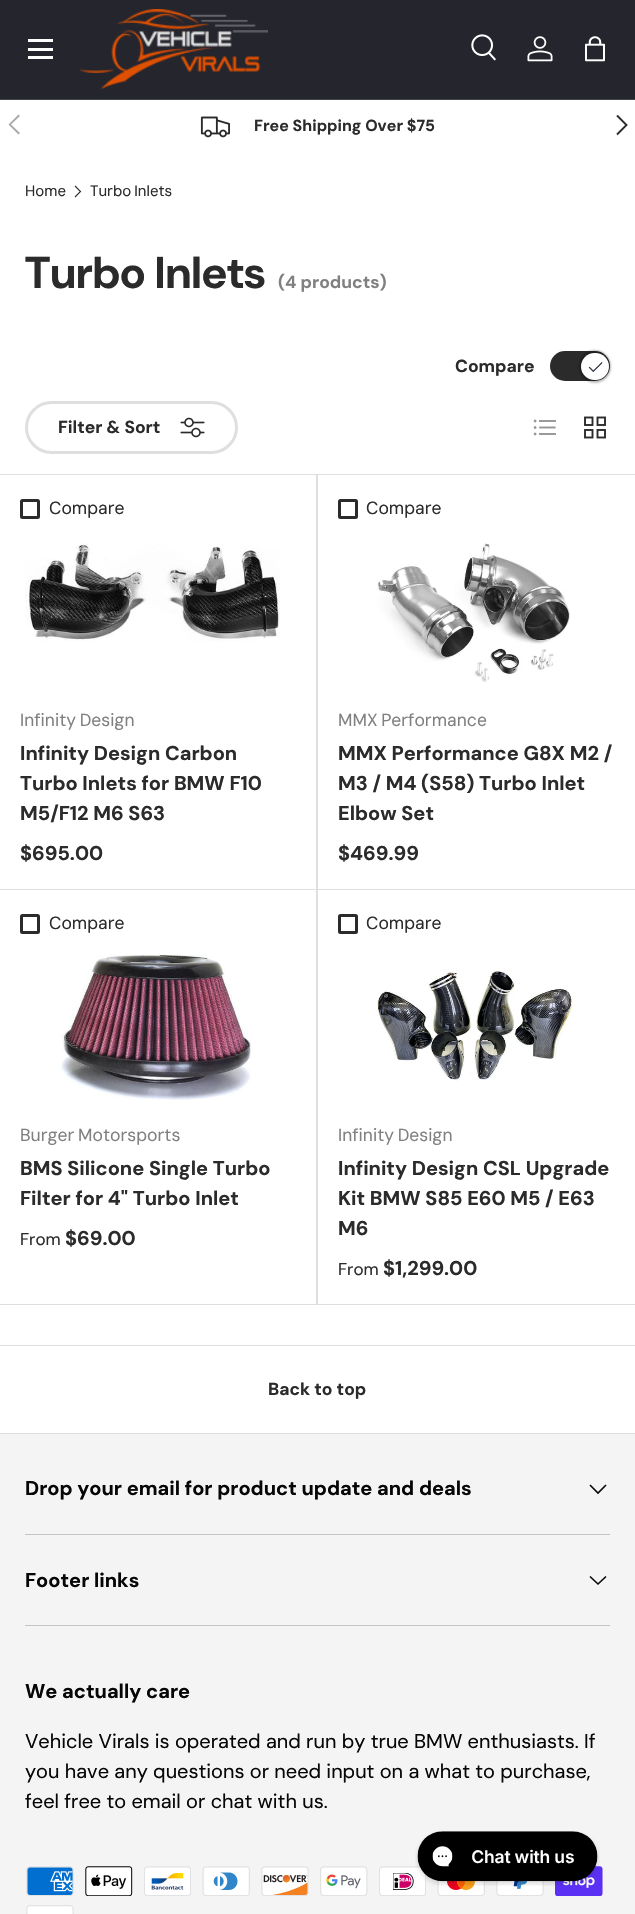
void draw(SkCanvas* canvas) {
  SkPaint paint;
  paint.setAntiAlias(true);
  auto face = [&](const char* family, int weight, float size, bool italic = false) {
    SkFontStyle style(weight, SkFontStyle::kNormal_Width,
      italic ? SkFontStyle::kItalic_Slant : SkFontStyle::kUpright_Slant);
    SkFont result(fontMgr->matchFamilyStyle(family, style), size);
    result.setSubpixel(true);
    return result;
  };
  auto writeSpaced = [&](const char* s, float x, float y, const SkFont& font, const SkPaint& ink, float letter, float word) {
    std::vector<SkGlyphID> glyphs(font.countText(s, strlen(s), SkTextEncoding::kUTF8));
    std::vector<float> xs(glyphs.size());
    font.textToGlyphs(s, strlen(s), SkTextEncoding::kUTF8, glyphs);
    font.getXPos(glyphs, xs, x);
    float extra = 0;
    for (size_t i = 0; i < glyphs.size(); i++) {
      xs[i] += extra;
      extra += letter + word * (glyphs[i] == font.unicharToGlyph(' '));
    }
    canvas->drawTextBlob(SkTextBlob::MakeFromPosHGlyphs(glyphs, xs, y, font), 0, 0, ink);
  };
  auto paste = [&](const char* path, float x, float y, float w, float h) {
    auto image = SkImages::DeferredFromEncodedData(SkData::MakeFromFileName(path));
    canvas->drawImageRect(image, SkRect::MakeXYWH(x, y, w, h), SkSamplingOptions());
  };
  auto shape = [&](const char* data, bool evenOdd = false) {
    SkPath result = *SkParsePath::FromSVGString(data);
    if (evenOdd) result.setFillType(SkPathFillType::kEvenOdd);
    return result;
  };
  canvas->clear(0xffffffff);
  {
    const struct { float x, y, w, h; SkColor color; } items[] = {
      {0, 0, 635, 99, 0xff25252e},
      {0, 99, 635, 1, 0xff46464d},
      {28, 39, 25, 3, 0xffffffff},
      {28, 56, 25, 3, 0xffffffff},
      {28, 48, 25, 3, 0xffffffff},
    };
    for (auto [x, y, w, h, color] : items) {
      paint.setColor(color);
      canvas->drawRect(SkRect::MakeXYWH(x, y, w, h), paint);
    }
  }
  paste("img/1.png", 80, 9, 188, 80);
  paste("img/2.png", 471, 34, 25, 27);
  paste("img/3.png", 527, 36, 26, 26);
  paste("img/4.png", 585, 36, 20, 26);
  paint.setColor(0xffaaaaaa);
  canvas->drawPath(shape("M8.5 124.5L18.5 114.5L20 116L11 124.5L20 133L18.5 134.5Z"), paint);
  paint.setStroke(true);
  paint.setStrokeWidth(1.9f);
  paint.setColor(0xff2a2b2a);
  canvas->drawPath(shape("M617 115.5L626.5 125L617 134.5"), paint);
  paste("img/5.png", 200, 116, 30, 22);
  paint.setStrokeWidth(1.1f);
  canvas->drawPath(shape("M75 186L80.5 191.5L75 197"), paint);
  paint.setStroke(false);
  canvas->drawRoundRect(SkRect::MakeXYWH(550, 351, 60, 30), 15, 15, paint);
  paint.setColor(0x40000000);
  paint.setMaskFilter(SkMaskFilter::MakeBlur(kNormal_SkBlurStyle, 1));
  canvas->drawRoundRect(SkRect::MakeXYWH(579, 350, 32, 33), 16, 16, paint);
  paint.setMaskFilter(nullptr);
  paint.setColor(0xffffffff);
  canvas->drawRoundRect(SkRect::MakeXYWH(581, 353, 28, 27), 13.5f, 13.5f, paint);
  paste("img/6.png", 588, 362, 15, 10);
  paint.setStroke(true);
  paint.setStrokeWidth(3);
  paint.setColor(0xffdfdfdf);
  canvas->drawRoundRect(SkRect::MakeXYWH(26.5f, 402.5f, 210, 50), 25, 25, paint);
  paste("img/7.png", 180, 417, 25, 21);
  paste("img/8.png", 533, 419, 23, 17);
  paste("img/9.png", 584, 416, 22, 23);
  paint.setStroke(false);
  canvas->drawRect(SkRect::MakeXYWH(0, 474, 635, 1), paint);
  canvas->drawPath(shape("M318 475V890L316 889V475Z"), paint);
  paint.setColor(0x262a2b2a);
  canvas->drawPath(shape("M318 890H0V889H316Z"), paint);
  paint.setStroke(true);
  paint.setColor(0xff2a2b2a);
  canvas->drawRoundRect(SkRect::MakeXYWH(21.5f, 500.5f, 17, 17), 1, 1, paint);
  paste("img/10.png", 25, 543, 255, 99);
  paint.setStroke(false);
  paint.setColor(0xffdfdfdf);
  canvas->drawRect(SkRect::MakeXYWH(318, 889, 317, 1), paint);
  paint.setStroke(true);
  paint.setColor(0xff2a2b2a);
  canvas->drawRoundRect(SkRect::MakeXYWH(339.5f, 500.5f, 17, 17), 1, 1, paint);
  paste("img/11.png", 377, 543, 193, 139);
  paint.setStroke(false);
  paint.setColor(0xffdfdfdf);
  canvas->drawPath(shape("M318 890V1305L316 1304V890Z"), paint);
  paint.setColor(0x262a2b2a);
  canvas->drawPath(shape("M318 1305H0V1304H316Z"), paint);
  paint.setStroke(true);
  paint.setColor(0xff2a2b2a);
  canvas->drawRoundRect(SkRect::MakeXYWH(21.5f, 915.5f, 17, 17), 1, 1, paint);
  paste("img/12.png", 61, 954, 190, 146);
  paint.setStroke(false);
  paint.setColor(0xffdfdfdf);
  canvas->drawRect(SkRect::MakeXYWH(318, 1304, 317, 1), paint);
  paint.setStroke(true);
  paint.setColor(0xff2a2b2a);
  canvas->drawRoundRect(SkRect::MakeXYWH(339.5f, 915.5f, 17, 17), 1, 1, paint);
  paste("img/13.png", 377, 970, 196, 111);
  paint.setStroke(false);
  {
    const struct { float x, y, w, h; SkColor color; } items[] = {
      {0, 1345, 635, 1, 0xffdfdfdf},
      {0, 1433, 635, 1, 0xffdfdfdf},
      {0, 1434, 635, 480, 0xfff4f4f4},
      {25, 1534, 585, 1, 0xffc5c5c5},
    };
    for (auto [x, y, w, h, color] : items) {
      paint.setColor(color);
      canvas->drawRect(SkRect::MakeXYWH(x, y, w, h), paint);
    }
  }
  paint.setStroke(true);
  paint.setStrokeWidth(1.6f);
  paint.setColor(0xff070707);
  canvas->drawPath(shape("M606 1485L598 1493L590 1485"), paint);
  paint.setStroke(false);
  paint.setColor(0xffc5c5c5);
  canvas->drawRect(SkRect::MakeXYWH(25, 1625, 585, 1), paint);
  paint.setStroke(true);
  paint.setColor(0xff070707);
  canvas->drawPath(shape("M606 1576.5L598 1584L590 1576.5"), paint);
  paste("img/14.png", 26, 1866, 48, 30);
  paste("img/15.png", 85, 1866, 48, 30);
  paste("img/16.png", 144, 1866, 47, 30);
  paste("img/17.png", 202, 1866, 48, 30);
  paste("img/18.png", 261, 1866, 48, 30);
  paste("img/19.png", 320, 1866, 48, 30);
  paste("img/20.png", 379, 1866, 47, 30);
  paste("img/21.png", 437, 1880, 48, 16);
  paste("img/22.png", 496, 1881, 48, 15);
  paste("img/23.png", 555, 1866, 48, 30);
  paste("img/24.png", 26, 1905, 48, 9);
  paste("img/25.png", 415, 1831, 185, 55);
  auto f0 = face("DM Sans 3", 700, 16);
  paint.setStroke(false);
  paint.setColor(0xff2a2b2a);
  canvas->drawString("Free Shipping Over $75", 254, 131, f0, paint);
  auto f1 = face("DM Sans", 400, 15);
  canvas->drawString("Home", 25, 196, f1, paint);
  writeSpaced("Turbo Inlets", 90, 196, f1, paint, 0, -1);
  auto f2 = face("DM Sans", 700, 44.5f);
  canvas->drawString("Turbo Inlets", 25, 288, f2, paint);
  auto f3 = face("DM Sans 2", 700, 17.5f);
  paint.setColor(0xff7f807f);
  canvas->drawString("(4 products)", 278, 288, f3, paint);
  auto f4 = face("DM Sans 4", 700, 17.5f);
  paint.setColor(0xff2a2b2a);
  canvas->drawString("Compare", 455, 372, f4, paint);
  canvas->drawString("Filter & Sort", 58, 433, f4, paint);
  auto f5 = face("DM Sans", 400, 17.5f);
  canvas->drawString("Compare", 49, 514, f5, paint);
  paint.setColor(0xff7f807f);
  writeSpaced("Infinity Design", 20, 726, f5, paint, 0, -1);
  auto f6 = face("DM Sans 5", 700, 20);
  paint.setColor(0xff2a2b2a);
  {
    const struct { const char* s; float x, y; } items[] = {
      {"Infinity Design Carbon", 20, 760},
      {"Turbo Inlets for BMW F10", 20, 790},
      {"M5/F12 M6 S63", 20, 820},
      {"$695.00", 20, 860},
    };
    for (auto [s, x, y] : items) {
      canvas->drawString(s, x, y, f6, paint);
    }
  }
  canvas->drawString("Compare", 366, 514, f5, paint);
  paint.setColor(0xff7f807f);
  writeSpaced("MMX Performance", 338, 726, f5, paint, 0, -1);
  paint.setColor(0xff2a2b2a);
  {
    const struct { const char* s; float x, y; } items[] = {
      {"MMX Performance G8X M2 /", 338, 760},
      {"M3 / M4 (S58) Turbo Inlet", 338, 790},
      {"Elbow Set", 338, 820},
      {"$469.99", 338, 860},
    };
    for (auto [s, x, y] : items) {
      canvas->drawString(s, x, y, f6, paint);
    }
  }
  canvas->drawString("Compare", 49, 929, f5, paint);
  paint.setColor(0xff7f807f);
  writeSpaced("Burger Motorsports", 20, 1141, f5, paint, 0, -1);
  paint.setColor(0xff2a2b2a);
  canvas->drawString("BMS Silicone Single Turbo", 20, 1175, f6, paint);
  canvas->drawString("Filter for 4\" Turbo Inlet", 20, 1205, f6, paint);
  auto f7 = face("DM Sans 2", 400, 17);
  canvas->drawString("From", 20, 1245, f7, paint);
  canvas->drawString("$69.00", 65, 1245, f6, paint);
  canvas->drawString("Compare", 366, 929, f5, paint);
  paint.setColor(0xff7f807f);
  writeSpaced("Infinity Design", 338, 1141, f5, paint, 0, -1);
  paint.setColor(0xff2a2b2a);
  {
    const struct { const char* s; float x, y; } items[] = {
      {"Infinity Design CSL Upgrade", 338, 1175},
      {"Kit BMW S85 E60 M5 / E63", 338, 1205},
      {"M6", 338, 1235},
    };
    for (auto [s, x, y] : items) {
      canvas->drawString(s, x, y, f6, paint);
    }
  }
  canvas->drawString("From", 338, 1275, f7, paint);
  canvas->drawString("$1,299.00", 383, 1275, f6, paint);
  canvas->drawString("Back to top", 268, 1395, f4, paint);
  paint.setColor(0xff070707);
  {
    const struct { const char* s; float x, y; } items[] = {
      {"Drop your email for product update and deals", 25, 1495},
      {"Footer links", 25, 1587},
      {"We actually care", 25, 1698},
    };
    for (auto [s, x, y] : items) {
      canvas->drawString(s, x, y, f6, paint);
    }
  }
  auto f8 = face("DM Sans 3", 400, 20);
  {
    const struct { const char* s; float x, y; } items[] = {
      {"Vehicle Virals is operated and run by true BMW enthusiasts. If", 25, 1748},
      {"you have any questions or need input on a what to purchase,", 25, 1778},
      {"feel free to email or chat with us.", 25, 1808},
    };
    for (auto [s, x, y] : items) {
      canvas->drawString(s, x, y, f8, paint);
    }
  }
}
